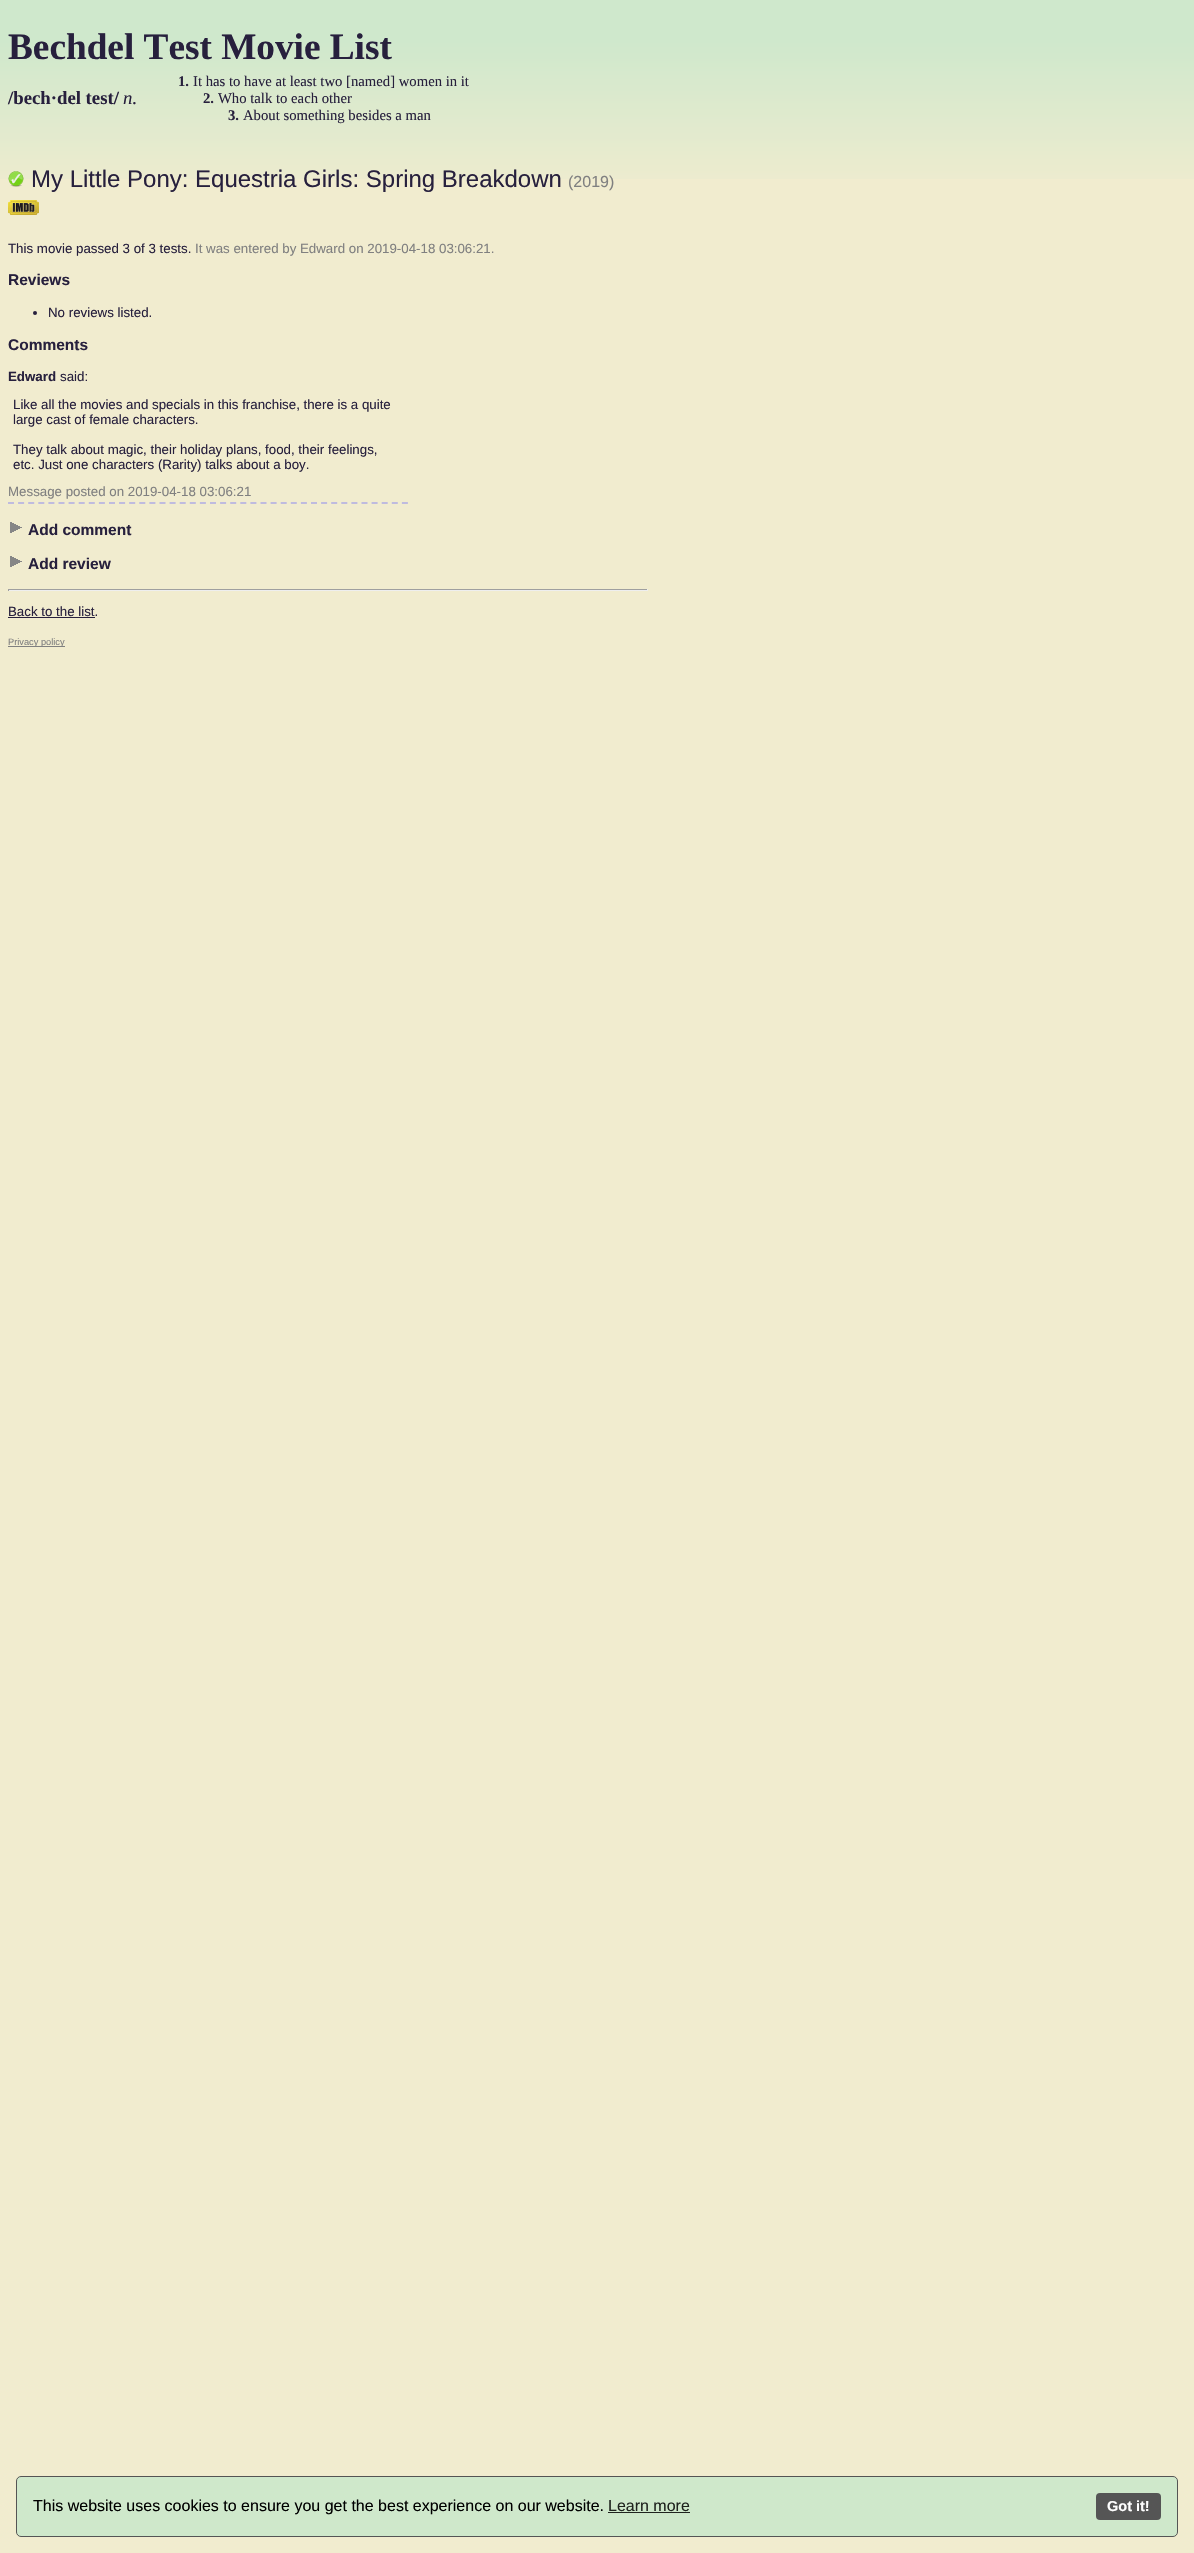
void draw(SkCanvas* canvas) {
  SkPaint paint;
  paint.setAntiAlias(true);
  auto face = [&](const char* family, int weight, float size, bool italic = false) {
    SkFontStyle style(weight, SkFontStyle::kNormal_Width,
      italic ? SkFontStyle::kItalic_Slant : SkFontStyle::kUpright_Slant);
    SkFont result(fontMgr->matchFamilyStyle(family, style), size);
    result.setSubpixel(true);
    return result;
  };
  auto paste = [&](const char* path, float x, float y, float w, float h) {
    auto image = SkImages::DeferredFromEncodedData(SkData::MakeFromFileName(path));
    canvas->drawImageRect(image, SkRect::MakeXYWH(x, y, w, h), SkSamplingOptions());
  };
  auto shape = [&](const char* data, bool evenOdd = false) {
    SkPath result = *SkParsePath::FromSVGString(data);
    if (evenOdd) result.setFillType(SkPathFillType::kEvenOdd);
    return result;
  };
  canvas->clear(0xfff1eccf);
  paste("img/1.png", 0, 0, 1194, 179);
  paste("img/2.png", 8, 171, 16, 16);
  paste("img/3.png", 8, 200, 31, 15);
  paint.setColor(0xff27203d);
  canvas->drawCircle(35, 313, 2, paint);
  paint.setStroke(true);
  paint.setStrokeWidth(2);
  paint.setColor(0xffbfbbdf);
  paint.setPathEffect(SkDashPathEffect::Make({{6, 4.1f}}, 0));
  canvas->drawPath(shape("M8 503H408"), paint);
  paint.setPathEffect(nullptr);
  paste("img/4.png", 10, 522, 12, 11);
  paste("img/4.png", 10, 556, 12, 11);
  paint.setStroke(false);
  {
    const struct { float x, y, w, h; SkColor color; } items[] = {
      {8, 589, 640, 1, 0xff9f9f9f},
      {647, 589, 1, 2, 0xffeeeeee},
      {8, 590, 640, 1, 0xffeeeeee},
      {8, 589, 1, 2, 0xff9f9f9f},
      {8, 617, 87, 1, 0xff27203d},
      {8, 646, 57, 1, 0xff808080},
    };
    for (auto [x, y, w, h, color] : items) {
      paint.setColor(color);
      canvas->drawRect(SkRect::MakeXYWH(x, y, w, h), paint);
    }
  }
  paint.setColor(0xffcfe8cb);
  canvas->drawRoundRect(SkRect::MakeXYWH(16.5f, 2476.5f, 1161, 60), 4.5f, 4.5f, paint);
  paint.setStroke(true);
  paint.setStrokeWidth(1);
  paint.setColor(0xff555555);
  canvas->drawRoundRect(SkRect::MakeXYWH(16.5f, 2476.5f, 1161, 60), 4.5f, 4.5f, paint);
  paint.setStroke(false);
  paint.setColor(0xff1f231e);
  canvas->drawRect(SkRect::MakeXYWH(608, 2512, 82, 1), paint);
  paint.setColor(0xff555555);
  canvas->drawRoundRect(SkRect::MakeXYWH(1096, 2493, 65, 27), 4, 4, paint);
  auto f0 = face("Liberation Serif", 700, 37.25f);
  paint.setColor(0xff27203d);
  canvas->drawString("Bechdel Test Movie List", 8, 59, f0, paint);
  auto f1 = face("Liberation Serif", 700, 18.75f);
  canvas->drawString("/bech·del test/", 8, 104, f1, paint);
  auto f2 = face("Liberation Serif", 400, 18.75f, true);
  canvas->drawString("n.", 123, 104, f2, paint);
  auto f3 = face("Liberation Serif", 700, 14.7f);
  canvas->drawString("1.", 178, 86, f3, paint);
  auto f4 = face("Liberation Serif", 400, 14.7f);
  canvas->drawString("It has to have at least two [named] women in it", 193, 86, f4, paint);
  canvas->drawString("2.", 203, 103, f3, paint);
  canvas->drawString("Who talk to each other", 218, 103, f4, paint);
  canvas->drawString("3.", 228, 120, f3, paint);
  canvas->drawString("About something besides a man", 243, 120, f4, paint);
  auto f5 = face("Liberation Sans", 400, 24);
  canvas->drawString("My Little Pony: Equestria Girls: Spring Breakdown", 31, 187, f5, paint);
  auto f6 = face("Liberation Sans", 400, 16);
  paint.setColor(0xff808080);
  canvas->drawString("(2019)", 568, 187, f6, paint);
  auto f7 = face("Liberation Sans", 400, 13.3f);
  paint.setColor(0xff27203d);
  canvas->drawString("This movie passed 3 of 3 tests.", 8, 253, f7, paint);
  paint.setColor(0xff808080);
  canvas->drawString("It was entered by Edward on 2019-04-18 03:06:21.", 195, 253, f7, paint);
  auto f8 = face("Liberation Sans", 700, 15.5f);
  paint.setColor(0xff27203d);
  canvas->drawString("Reviews", 8, 285, f8, paint);
  canvas->drawString("No reviews listed.", 48, 317, f7, paint);
  canvas->drawString("Comments", 8, 350, f8, paint);
  auto f9 = face("Liberation Sans", 700, 13.3f);
  canvas->drawString("Edward", 8, 381, f9, paint);
  {
    const struct { const char* s; float x, y; } items[] = {
      {"said:", 60, 381},
      {"Like all the movies and specials in this franchise, there is a quite", 13, 409},
      {"large cast of female characters.", 13, 424},
      {"They talk about magic, their holiday plans, food, their feelings,", 13, 454},
      {"etc. Just one characters (Rarity) talks about a boy.", 13, 469},
    };
    for (auto [s, x, y] : items) {
      canvas->drawString(s, x, y, f7, paint);
    }
  }
  paint.setColor(0xff808080);
  canvas->drawString("Message posted on 2019-04-18 03:06:21", 8, 496, f7, paint);
  paint.setColor(0xff27203d);
  canvas->drawString("Add comment", 28, 535, f8, paint);
  canvas->drawString("Add review", 28, 569, f8, paint);
  canvas->drawString("Back to the list.", 8, 616, f7, paint);
  auto f10 = face("Liberation Sans", 400, 9.25f);
  paint.setColor(0xff808080);
  canvas->drawString("Privacy policy", 8, 645, f10, paint);
  paint.setColor(0xff000000);
  canvas->drawString("This website uses cookies to ensure you get the best experience on our website.", 33, 2511, f6, paint);
  paint.setColor(0xff1f231e);
  canvas->drawString("Learn more", 608, 2511, f6, paint);
  auto f11 = face("Liberation Sans", 700, 14.5f);
  paint.setColor(0xffffffff);
  canvas->drawString("Got it!", 1107, 2511, f11, paint);
}
